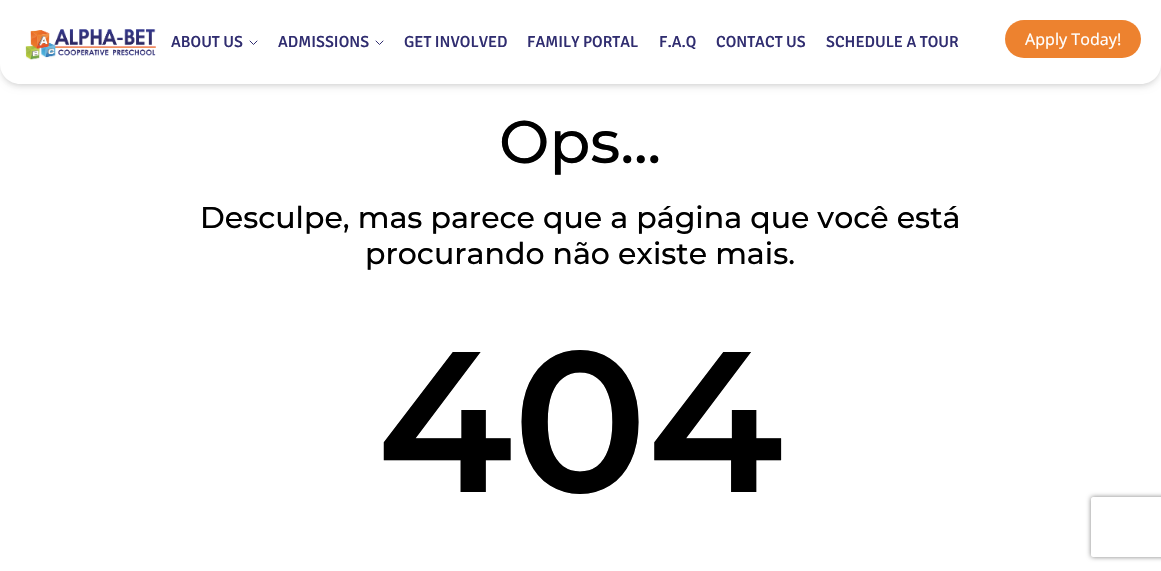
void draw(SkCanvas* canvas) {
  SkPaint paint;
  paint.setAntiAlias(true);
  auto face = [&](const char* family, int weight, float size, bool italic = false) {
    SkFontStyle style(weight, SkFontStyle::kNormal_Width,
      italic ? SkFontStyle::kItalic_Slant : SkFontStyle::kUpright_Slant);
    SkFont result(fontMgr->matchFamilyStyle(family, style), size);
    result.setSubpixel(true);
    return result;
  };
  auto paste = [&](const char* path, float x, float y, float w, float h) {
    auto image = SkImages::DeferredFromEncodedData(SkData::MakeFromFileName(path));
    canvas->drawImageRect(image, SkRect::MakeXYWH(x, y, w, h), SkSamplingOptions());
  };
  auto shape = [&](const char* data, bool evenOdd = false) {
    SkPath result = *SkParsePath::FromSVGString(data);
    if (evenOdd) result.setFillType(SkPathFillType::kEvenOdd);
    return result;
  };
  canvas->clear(0xffffffff);
  paint.setColor(0x1a000000);
  paint.setMaskFilter(SkMaskFilter::MakeBlur(kNormal_SkBlurStyle, 2));
  canvas->drawRoundRect(SkRect::MakeXYWH(2, 4, 1157, 80), 18, 18, paint);
  paint.setMaskFilter(nullptr);
  paint.setMaskFilter(SkMaskFilter::MakeBlur(kNormal_SkBlurStyle, 3));
  canvas->drawRoundRect(SkRect::MakeXYWH(1, 5, 1159, 82), 19, 19, paint);
  paint.setMaskFilter(nullptr);
  paint.setColor(0xffffffff);
  canvas->drawPath(shape("M0 0H1161V64C1161 75 1152 84 1141 84H20C9 84 0 75 0 64Z"), paint);
  paste("img/1.png", 25, 29, 131, 31);
  paint.setStroke(true);
  paint.setStrokeWidth(1);
  paint.setStrokeCap(SkPaint::kRound_Cap);
  paint.setStrokeJoin(SkPaint::kRound_Join);
  paint.setColor(0xff302d70);
  canvas->drawPath(shape("M257 41L253.5 44.5L250 41"), paint);
  canvas->drawPath(shape("M383 41L379.5 44.5L376 41"), paint);
  paint.setStroke(false);
  paint.setColor(0xffed822f);
  canvas->drawRoundRect(SkRect::MakeXYWH(1005, 20, 136, 38), 19, 19, paint);
  canvas->save();
  canvas->clipPath(shape("M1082 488H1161V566H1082ZM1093 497H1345C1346 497 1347 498 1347 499V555C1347 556 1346 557 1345 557H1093C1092 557 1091 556 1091 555V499C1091 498 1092 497 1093 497Z", true), true);
  paint.setColor(0xff808080);
  paint.setMaskFilter(SkMaskFilter::MakeBlur(kNormal_SkBlurStyle, 2.5f));
  canvas->drawRoundRect(SkRect::MakeXYWH(1091, 497, 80, 60), 2, 2, paint);
  paint.setMaskFilter(nullptr);
  canvas->restore();
  auto f0 = face("Signika", 500, 16);
  paint.setColor(0xff302d70);
  {
    const struct { const char* s; float x, y; } items[] = {
      {"ABOUT US", 171, 47},
      {"ADMISSIONS", 278, 47},
      {"GET INVOLVED", 404, 47},
      {"FAMILY PORTAL", 527, 47},
      {"F.A.Q", 659, 47},
      {"CONTACT US", 716, 47},
      {"SCHEDULE A TOUR", 826, 47},
    };
    for (auto [s, x, y] : items) {
      canvas->drawString(s, x, y, f0, paint);
    }
  }
  auto f1 = face("Noto Sans", 400, 16);
  paint.setColor(0xffffffff);
  canvas->drawString("Apply Today!", 1025, 45, f1, paint);
  auto f2 = face("Montserrat", 500, 60);
  paint.setColor(0xff000000);
  canvas->drawString("Ops...", 499, 163, f2, paint);
  auto f3 = face("Montserrat", 500, 30);
  canvas->drawString("Desculpe, mas parece que a página que você está", 200, 228, f3, paint);
  canvas->drawString("procurando não existe mais.", 365, 264, f3, paint);
  auto f4 = face("Montserrat", 600, 200);
  canvas->drawString("404", 377, 492, f4, paint);
}
